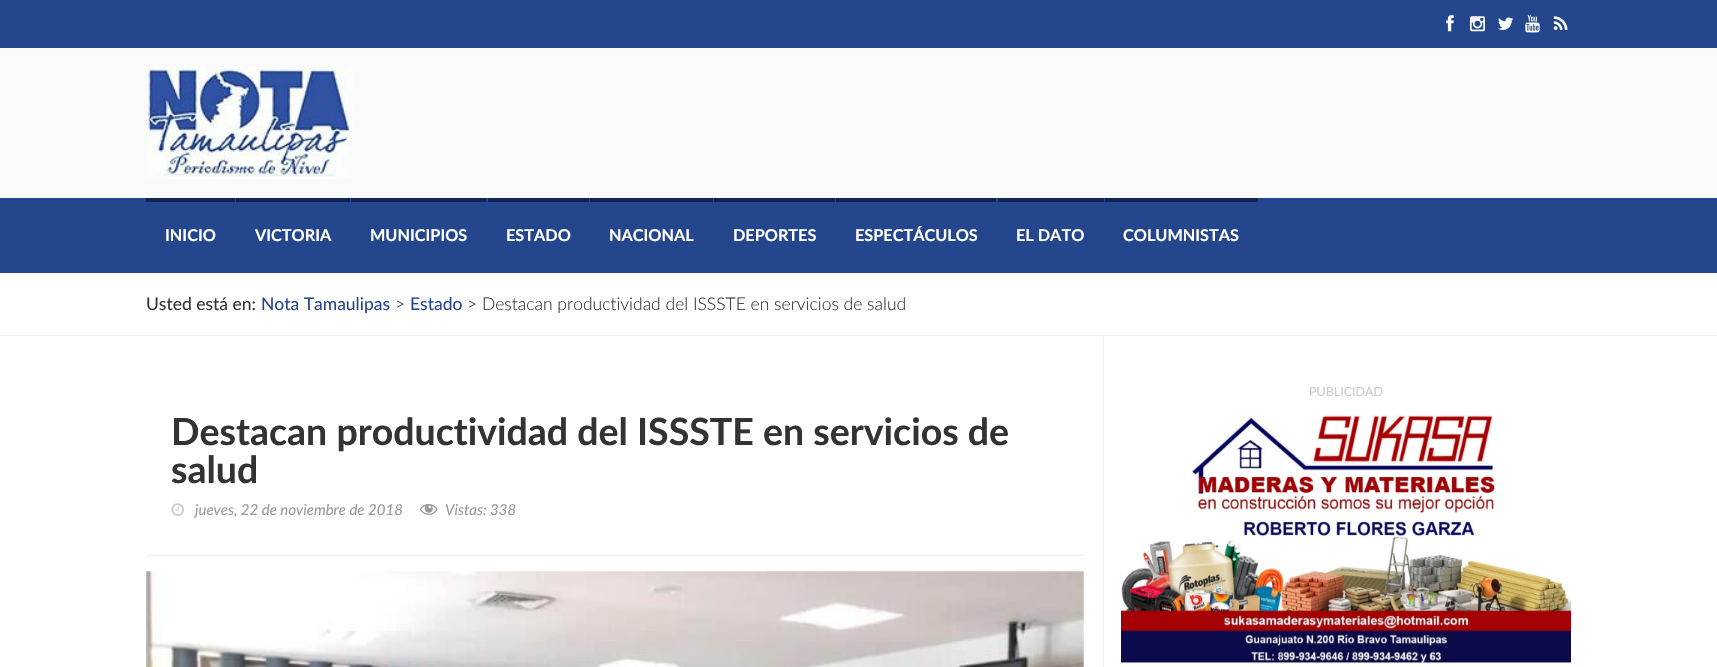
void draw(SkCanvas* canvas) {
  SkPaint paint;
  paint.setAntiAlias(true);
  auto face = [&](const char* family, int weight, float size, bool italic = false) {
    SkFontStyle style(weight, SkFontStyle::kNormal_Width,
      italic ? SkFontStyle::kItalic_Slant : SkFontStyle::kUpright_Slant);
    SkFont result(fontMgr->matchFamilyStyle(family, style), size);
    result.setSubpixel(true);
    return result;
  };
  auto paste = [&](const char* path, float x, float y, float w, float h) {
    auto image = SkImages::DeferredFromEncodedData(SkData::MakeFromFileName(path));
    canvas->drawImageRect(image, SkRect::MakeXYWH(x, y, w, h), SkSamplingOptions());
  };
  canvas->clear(0xffffffff);
  paint.setColor(0xfffafafa);
  canvas->drawRect(SkRect::MakeXYWH(0, 48, 1717, 150), paint);
  paint.setColor(0xff24468c);
  canvas->drawRect(SkRect::MakeXYWH(0, 0, 1717, 48), paint);
  paste("img/1.png", 1446, 15, 8, 17);
  paste("img/2.png", 1470, 16, 15, 16);
  paste("img/3.png", 1498, 17, 16, 13);
  paste("img/4.png", 1525, 15, 15, 18);
  paste("img/5.png", 1553, 16, 15, 14);
  paste("img/6.png", 146, 66, 207, 113);
  {
    const struct { float x, y, w, h; SkColor color; } items[] = {
      {0, 198, 1717, 75, 0xff24468c},
      {146, 198, 89, 4, 0xff12244e},
      {236, 198, 114, 4, 0xff12244e},
      {351, 198, 135, 4, 0xff12244e},
      {488, 198, 101, 4, 0xff12244e},
      {590, 198, 123, 4, 0xff12244e},
      {714, 198, 121, 4, 0xff12244e},
      {836, 198, 160, 4, 0xff12244e},
      {998, 198, 106, 4, 0xff12244e},
      {1105, 198, 153, 4, 0xff12244e},
      {0, 335, 1717, 1, 0xfff0f0f0},
    };
    for (auto [x, y, w, h, color] : items) {
      paint.setColor(color);
      canvas->drawRect(SkRect::MakeXYWH(x, y, w, h), paint);
    }
  }
  paste("img/7.png", 1121, 414, 450, 249);
  canvas->drawRect(SkRect::MakeXYWH(146, 555, 938, 1), paint);
  paste("img/8.png", 171, 503, 13, 13);
  paste("img/9.png", 419, 504, 19, 11);
  paste("img/10.png", 146, 571, 938, 96);
  canvas->drawRect(SkRect::MakeXYWH(1103, 336, 1, 331), paint);
  auto f0 = face("Lato", 700, 16.25f);
  paint.setColor(0xffffffff);
  {
    const struct { const char* s; float x, y; } items[] = {
      {"INICIO", 165, 241},
      {"VICTORIA", 255, 241},
      {"MUNICIPIOS", 370, 241},
      {"ESTADO", 506, 241},
      {"NACIONAL", 609, 241},
      {"DEPORTES", 733, 241},
      {"ESPECTÁCULOS", 855, 241},
      {"EL DATO", 1016, 241},
      {"COLUMNISTAS", 1123, 241},
    };
    for (auto [s, x, y] : items) {
      canvas->drawString(s, x, y, f0, paint);
    }
  }
  auto f1 = face("Lato", 400, 17.5f);
  paint.setColor(0xff333333);
  canvas->drawString("Usted está en:", 146, 310, f1, paint);
  paint.setColor(0xff23468c);
  canvas->drawString("Nota Tamaulipas", 261, 310, f1, paint);
  auto f2 = face("Lato", 300, 17.5f);
  paint.setColor(0xff333333);
  canvas->drawString(">", 395, 310, f2, paint);
  paint.setColor(0xff23468c);
  canvas->drawString("Estado", 410, 310, f1, paint);
  paint.setColor(0xff333333);
  canvas->drawString("> Destacan productividad del ISSSTE en servicios de salud", 467, 310, f2, paint);
  auto f3 = face("Lato", 400, 12.5f);
  paint.setColor(0xffcccccc);
  canvas->drawString("PUBLICIDAD", 1309, 396, f3, paint);
  auto f4 = face("Lato", 700, 37.5f);
  paint.setColor(0xff333333);
  canvas->drawString("Destacan productividad del ISSSTE en servicios de", 171, 445, f4, paint);
  canvas->drawString("salud", 171, 483, f4, paint);
  auto f5 = face("Lato", 400, 15, true);
  paint.setColor(0xff999999);
  canvas->drawString("jueves, 22 de noviembre de 2018", 195, 515, f5, paint);
  canvas->drawString("Vistas: 338", 445, 515, f5, paint);
}
